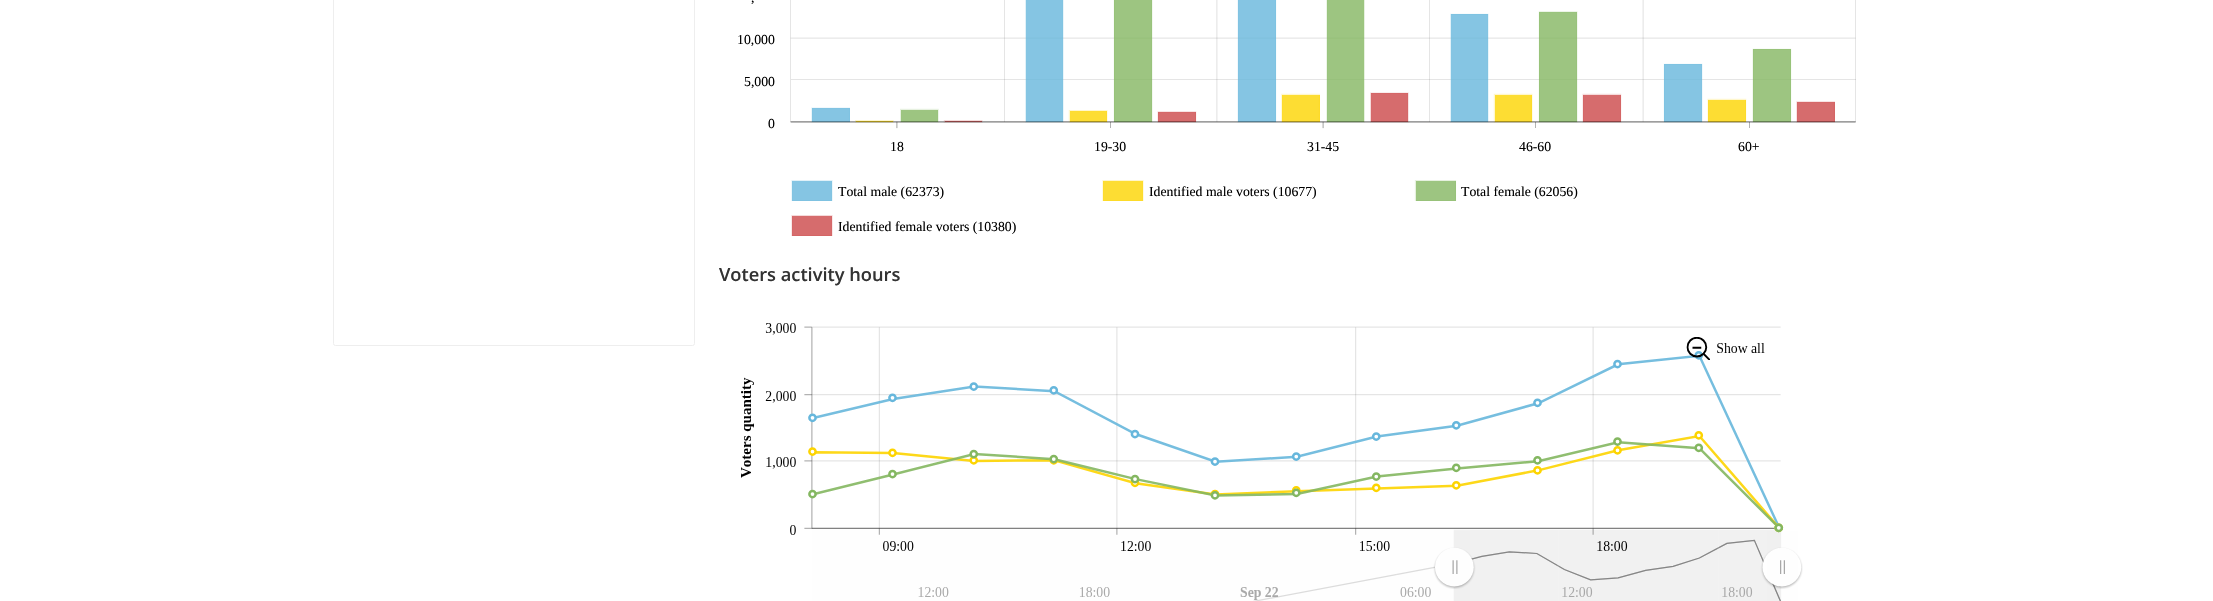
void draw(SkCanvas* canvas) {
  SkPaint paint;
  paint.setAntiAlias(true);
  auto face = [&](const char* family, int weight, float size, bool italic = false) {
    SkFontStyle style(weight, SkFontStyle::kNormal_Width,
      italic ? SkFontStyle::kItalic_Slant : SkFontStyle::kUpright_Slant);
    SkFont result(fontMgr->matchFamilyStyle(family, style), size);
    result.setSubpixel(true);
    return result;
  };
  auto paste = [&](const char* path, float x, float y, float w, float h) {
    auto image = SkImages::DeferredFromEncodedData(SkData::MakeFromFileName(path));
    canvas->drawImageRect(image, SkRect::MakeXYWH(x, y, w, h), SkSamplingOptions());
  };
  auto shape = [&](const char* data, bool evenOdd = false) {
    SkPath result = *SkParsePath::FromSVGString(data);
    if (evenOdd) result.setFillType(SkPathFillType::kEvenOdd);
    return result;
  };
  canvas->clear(0xffffffff);
  paint.setStroke(true);
  paint.setStrokeWidth(1);
  paint.setColor(0xffeeeeee);
  canvas->drawRoundRect(SkRect::MakeXYWH(333.5f, -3.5f, 361, 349), 2, 2, paint);
  paste("img/1.png", 790, 0, 1066, 129);
  paint.setStroke(false);
  paint.setColor(0xff85c5e3);
  canvas->drawRect(SkRect::MakeXYWH(792, 181, 40, 20), paint);
  paint.setStroke(true);
  paint.setStrokeWidth(1.2f);
  paint.setColor(0x3367b7dc);
  canvas->drawPath(shape("M792 200.5H832V180.5H792Z"), paint);
  paint.setStroke(false);
  paint.setColor(0xfffddd33);
  canvas->drawRect(SkRect::MakeXYWH(1103, 181, 40, 20), paint);
  paint.setStroke(true);
  paint.setColor(0x33fdd400);
  canvas->drawPath(shape("M1103 200.5H1143V180.5H1103Z"), paint);
  paint.setStroke(false);
  paint.setColor(0xff9dc581);
  canvas->drawRect(SkRect::MakeXYWH(1416, 181, 40, 20), paint);
  paint.setStroke(true);
  paint.setColor(0x3384b761);
  canvas->drawPath(shape("M1415.5 200.5H1455.5V180.5H1415.5Z"), paint);
  paint.setStroke(false);
  paint.setColor(0xffd66c6d);
  canvas->drawRect(SkRect::MakeXYWH(792, 216, 40, 20), paint);
  paint.setStroke(true);
  paint.setColor(0x33cc4748);
  canvas->drawPath(shape("M792 235.5H832V215.5H792Z"), paint);
  paste("img/2.png", 741, 323, 1062, 278);
  auto f0 = face("Liberation Serif", 400, 13.75f);
  paint.setStroke(false);
  paint.setColor(0xff000000);
  {
    const struct { const char* s; float x, y; } items[] = {
      {",", 751, 2},
      {"10,000", 737, 44},
      {"5,000", 744, 86},
      {"0", 768, 128},
      {"18", 890, 151},
      {"19-30", 1094, 151},
      {"31-45", 1307, 151},
      {"46-60", 1519, 151},
      {"60+", 1738, 151},
      {"Total male (62373)", 838, 196},
      {"Identified male voters (10677)", 1149, 196},
      {"Total female (62056)", 1461, 196},
      {"Identified female voters (10380)", 838, 231},
    };
    for (auto [s, x, y] : items) {
      canvas->drawString(s, x, y, f0, paint);
    }
  }
  auto f1 = face("Open Sans", 600, 18.25f);
  paint.setColor(0xff333333);
  canvas->drawString("Voters activity hours", 719, 281, f1, paint);
}
